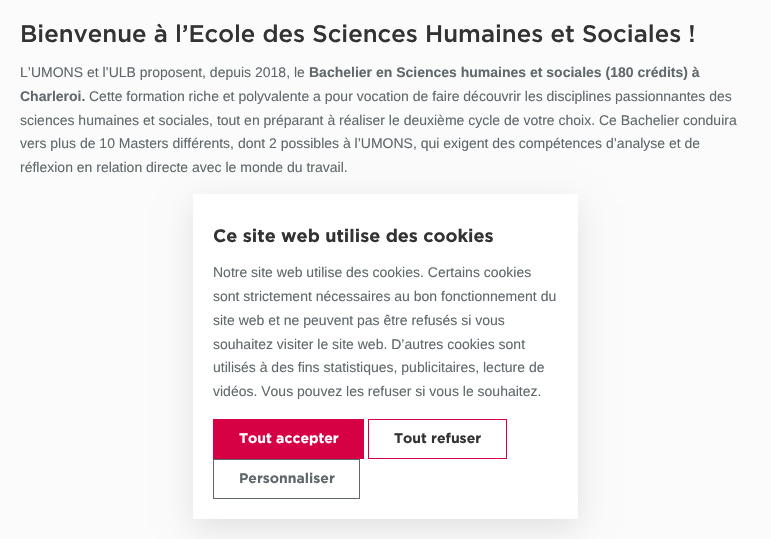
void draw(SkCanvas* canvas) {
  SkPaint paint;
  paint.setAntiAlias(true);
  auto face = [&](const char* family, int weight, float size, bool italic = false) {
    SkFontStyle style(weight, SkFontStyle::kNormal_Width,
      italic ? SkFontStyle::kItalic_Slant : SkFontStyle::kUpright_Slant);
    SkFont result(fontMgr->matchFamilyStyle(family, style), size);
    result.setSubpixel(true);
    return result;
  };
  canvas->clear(0xfffbfbfb);
  paint.setColor(0x1a000000);
  paint.setMaskFilter(SkMaskFilter::MakeBlur(kNormal_SkBlurStyle, 15));
  canvas->drawRect(SkRect::MakeXYWH(193, 204, 385, 325), paint);
  paint.setMaskFilter(nullptr);
  paint.setColor(0xffffffff);
  canvas->drawRect(SkRect::MakeXYWH(193, 194, 385, 325), paint);
  paint.setColor(0xffd60044);
  canvas->drawRect(SkRect::MakeXYWH(213, 419, 151, 40), paint);
  paint.setStroke(true);
  paint.setStrokeWidth(1);
  canvas->drawRect(SkRect::MakeXYWH(368.5f, 419.5f, 138, 39), paint);
  paint.setColor(0xff5f686b);
  canvas->drawRect(SkRect::MakeXYWH(213.5f, 459.5f, 146, 39), paint);
  auto f0 = face("Gotham", 500, 24);
  paint.setStroke(false);
  paint.setColor(0xff333333);
  canvas->drawString("Bienvenue à l’Ecole des Sciences Humaines et Sociales !", 20, 42, f0, paint);
  auto f1 = face("Liberation Sans", 400, 14);
  paint.setColor(0xff5f686b);
  canvas->drawString("L’UMONS et l’ULB proposent, depuis 2018, le", 20, 77, f1, paint);
  auto f2 = face("Liberation Sans", 700, 14);
  canvas->drawString("Bachelier en Sciences humaines et sociales (180 crédits) à", 309, 77, f2, paint);
  canvas->drawString("Charleroi.", 20, 101, f2, paint);
  {
    const struct { const char* s; float x, y; } items[] = {
      {"Cette formation riche et polyvalente a pour vocation de faire découvrir les disciplines passionnantes des", 89, 101},
      {"sciences humaines et sociales, tout en préparant à réaliser le deuxième cycle de votre choix. Ce Bachelier conduira", 20, 125},
      {"vers plus de 10 Masters différents, dont 2 possibles à l’UMONS, qui exigent des compétences d’analyse et de", 20, 148},
      {"réflexion en relation directe avec le monde du travail.", 20, 172},
    };
    for (auto [s, x, y] : items) {
      canvas->drawString(s, x, y, f1, paint);
    }
  }
  auto f3 = face("Gotham", 700, 18);
  paint.setColor(0xff333333);
  canvas->drawString("Ce site web utilise des cookies", 213, 242, f3, paint);
  paint.setColor(0xff5f686b);
  {
    const struct { const char* s; float x, y; } items[] = {
      {"Notre site web utilise des cookies. Certains cookies", 213, 277},
      {"sont strictement nécessaires au bon fonctionnement du", 213, 301},
      {"site web et ne peuvent pas être refusés si vous", 213, 325},
      {"souhaitez visiter le site web. D’autres cookies sont", 213, 349},
      {"utilisés à des fins statistiques, publicitaires, lecture de", 213, 372},
      {"vidéos. Vous pouvez les refuser si vous le souhaitez.", 213, 396},
    };
    for (auto [s, x, y] : items) {
      canvas->drawString(s, x, y, f1, paint);
    }
  }
  auto f4 = face("Gotham", 700, 14);
  paint.setColor(0xffffffff);
  canvas->drawString("Tout accepter", 239, 443, f4, paint);
  paint.setColor(0xff333333);
  canvas->drawString("Tout refuser", 394, 443, f4, paint);
  paint.setColor(0xff5f686b);
  canvas->drawString("Personnaliser", 239, 483, f4, paint);
}
